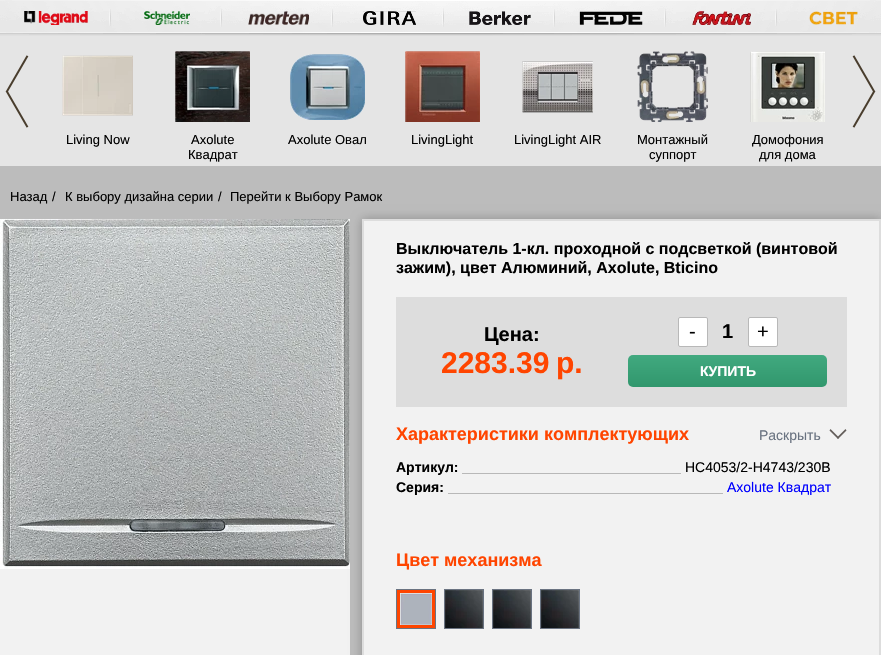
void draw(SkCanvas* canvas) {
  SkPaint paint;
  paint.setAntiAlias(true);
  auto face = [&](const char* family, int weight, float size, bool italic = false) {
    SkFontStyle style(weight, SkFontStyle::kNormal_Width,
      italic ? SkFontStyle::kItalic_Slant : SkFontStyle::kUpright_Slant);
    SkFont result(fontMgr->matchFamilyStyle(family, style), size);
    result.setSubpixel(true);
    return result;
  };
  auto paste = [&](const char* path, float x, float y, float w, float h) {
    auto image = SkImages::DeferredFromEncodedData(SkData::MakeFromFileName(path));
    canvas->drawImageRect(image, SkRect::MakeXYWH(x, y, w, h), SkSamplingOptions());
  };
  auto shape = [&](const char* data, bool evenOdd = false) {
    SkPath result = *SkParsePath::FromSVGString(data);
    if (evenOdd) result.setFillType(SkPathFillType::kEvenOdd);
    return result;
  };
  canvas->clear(0xffbcbcbc);
  paint.setColor(0xffe5e5e5);
  canvas->drawRect(SkRect::MakeXYWH(0, 0, 881, 166), paint);
  paste("img/1.png", 0, 0, 881, 36);
  paste("img/2.png", 24, 11, 64, 14);
  paste("img/3.png", 109, 9, 2, 17);
  paste("img/4.png", 144, 11, 46, 14);
  paste("img/5.png", 220, 9, 2, 18);
  paste("img/6.png", 248, 11, 61, 14);
  paste("img/7.png", 331, 9, 2, 18);
  paste("img/8.png", 363, 11, 53, 14);
  paste("img/9.png", 442, 8, 2, 19);
  paste("img/10.png", 469, 11, 62, 14);
  paste("img/11.png", 553, 9, 2, 18);
  paste("img/12.png", 579, 11, 64, 14);
  paste("img/13.png", 664, 9, 2, 18);
  paste("img/14.png", 692, 11, 59, 14);
  paste("img/15.png", 775, 9, 2, 17);
  paste("img/16.png", 809, 11, 49, 14);
  paste("img/17.png", 5, 55, 24, 73);
  paste("img/18.png", 852, 55, 24, 73);
  paste("img/19.png", 62, 55, 71, 61);
  paste("img/20.png", 175, 51, 75, 71);
  paste("img/21.png", 290, 54, 75, 66);
  paste("img/22.png", 405, 51, 75, 71);
  paste("img/23.png", 522, 61, 71, 52);
  paste("img/24.png", 637, 51, 71, 71);
  paste("img/25.png", 750, 51, 75, 71);
  paint.setColor(0xfff2f2f2);
  canvas->drawRect(SkRect::MakeXYWH(0, 569, 350, 86), paint);
  paste("img/26.png", 0, 219, 350, 350);
  paint.setColor(0x40000000);
  paint.setMaskFilter(SkMaskFilter::MakeBlur(kNormal_SkBlurStyle, 5));
  canvas->drawRect(SkRect::MakeXYWH(362, 219, 519, 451), paint);
  paint.setMaskFilter(nullptr);
  paint.setColor(0xfff2f2f2);
  canvas->drawRect(SkRect::MakeXYWH(363, 220, 517, 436), paint);
  paint.setStroke(true);
  paint.setStrokeWidth(2);
  paint.setColor(0xffdddddd);
  canvas->drawRect(SkRect::MakeXYWH(363, 220, 517, 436), paint);
  paint.setStroke(false);
  canvas->drawRect(SkRect::MakeXYWH(396, 297, 451, 110), paint);
  paint.setColor(0xffffffff);
  canvas->drawRoundRect(SkRect::MakeXYWH(678.5f, 317.5f, 29, 29), 1.5f, 1.5f, paint);
  paint.setStroke(true);
  paint.setStrokeWidth(1);
  paint.setColor(0xffb8b8b8);
  canvas->drawRoundRect(SkRect::MakeXYWH(678.5f, 317.5f, 29, 29), 1.5f, 1.5f, paint);
  paint.setStroke(false);
  paint.setColor(0xffffffff);
  canvas->drawRoundRect(SkRect::MakeXYWH(748.5f, 317.5f, 29, 29), 1.5f, 1.5f, paint);
  paint.setStroke(true);
  paint.setColor(0xffb8b8b8);
  canvas->drawRoundRect(SkRect::MakeXYWH(748.5f, 317.5f, 29, 29), 1.5f, 1.5f, paint);
  paint.setStroke(false);
  {
    const SkColor colors[] = {0xff41a97f, 0xff31976d};
    const float stops[] = {0, 1};
    const SkPoint ends[] = {{728, 355}, {728, 387}};
    paint.setShader(SkGradientShader::MakeLinear(ends, colors, stops, 2, SkTileMode::kClamp));
    paint.setAlpha(255);
  }
  canvas->drawRoundRect(SkRect::MakeXYWH(628, 355, 199, 32), 5, 5, paint);
  paint.setShader(nullptr);
  paint.setColor(0xff645e5b);
  canvas->drawPath(shape("M829.5 430.5L830.5 429L839 437.5L838 439Z"), paint);
  canvas->drawPath(shape("M845.5 429L846.5 430.5L838 439L837 437.5Z"), paint);
  paint.setColor(0xffb8b8b8);
  canvas->drawRect(SkRect::MakeXYWH(462, 473, 219, 1), paint);
  canvas->drawRect(SkRect::MakeXYWH(448, 493, 275, 1), paint);
  paint.setStroke(true);
  paint.setStrokeWidth(3);
  paint.setColor(0xffff4500);
  canvas->drawRect(SkRect::MakeXYWH(398.5f, 591.5f, 35, 35), paint);
  paint.setStrokeWidth(1);
  paint.setColor(0xff6a7381);
  canvas->drawRect(SkRect::MakeXYWH(396.5f, 589.5f, 39, 39), paint);
  paste("img/27.png", 400, 593, 32, 32);
  canvas->drawRect(SkRect::MakeXYWH(444.5f, 589.5f, 39, 39), paint);
  paste("img/28.png", 445, 590, 38, 38);
  canvas->drawRect(SkRect::MakeXYWH(492.5f, 589.5f, 39, 39), paint);
  paste("img/29.png", 493, 590, 38, 38);
  canvas->drawRect(SkRect::MakeXYWH(540.5f, 589.5f, 39, 39), paint);
  paste("img/29.png", 541, 590, 38, 38);
  auto f0 = face("Liberation Sans", 400, 13);
  paint.setStroke(false);
  paint.setColor(0xff000000);
  {
    const struct { const char* s; float x, y; } items[] = {
      {"Living Now", 66, 144},
      {"Axolute", 191, 144},
      {"Квадрат", 188, 159},
      {"Axolute Овал", 288, 144},
      {"LivingLight", 411, 144},
      {"LivingLight AIR", 514, 144},
      {"Монтажный", 637, 144},
      {"суппорт", 649, 159},
      {"Домофония", 752, 144},
      {"для дома", 759, 159},
      {"Назад", 10, 201},
      {"/", 52, 201},
      {"К выбору дизайна серии", 65, 201},
      {"/", 218, 201},
      {"Перейти к Выбору Рамок", 230, 201},
    };
    for (auto [s, x, y] : items) {
      canvas->drawString(s, x, y, f0, paint);
    }
  }
  auto f1 = face("Liberation Sans", 700, 16);
  canvas->drawString("Выключатель 1-кл. проходной с подсветкой (винтовой", 396, 254, f1, paint);
  canvas->drawString("зажим), цвет Алюминий, Axolute, Bticino", 396, 273, f1, paint);
  auto f2 = face("Liberation Sans", 700, 20);
  canvas->drawString("Цена:", 484, 341, f2, paint);
  auto f3 = face("Liberation Sans", 700, 30);
  paint.setColor(0xffff4500);
  canvas->drawString("2283.39", 441, 373, f3, paint);
  canvas->drawString("р.", 556, 373, f3, paint);
  auto f4 = face("Liberation Sans", 400, 20);
  paint.setColor(0xff000000);
  canvas->drawString("-", 689, 338, f4, paint);
  canvas->drawString("1", 722, 338, f2, paint);
  canvas->drawString("+", 757, 338, f4, paint);
  auto f5 = face("Liberation Sans", 700, 14);
  paint.setColor(0xffffffff);
  canvas->drawString("КУПИТЬ", 700, 376, f5, paint);
  auto f6 = face("Liberation Sans", 700, 18);
  paint.setColor(0xffff4500);
  canvas->drawString("Характеристики комплектующих", 396, 440, f6, paint);
  auto f7 = face("Liberation Sans", 400, 14);
  paint.setColor(0xff6a7381);
  canvas->drawString("Раскрыть", 759, 440, f7, paint);
  paint.setColor(0xff000000);
  canvas->drawString("Артикул:", 396, 472, f5, paint);
  canvas->drawString("HC4053/2-H4743/230B", 685, 472, f7, paint);
  canvas->drawString("Серия:", 396, 492, f5, paint);
  paint.setColor(0xff0000ff);
  canvas->drawString("Axolute Квадрат", 727, 492, f7, paint);
  paint.setColor(0xffff4500);
  canvas->drawString("Цвет механизма", 396, 566, f6, paint);
}
